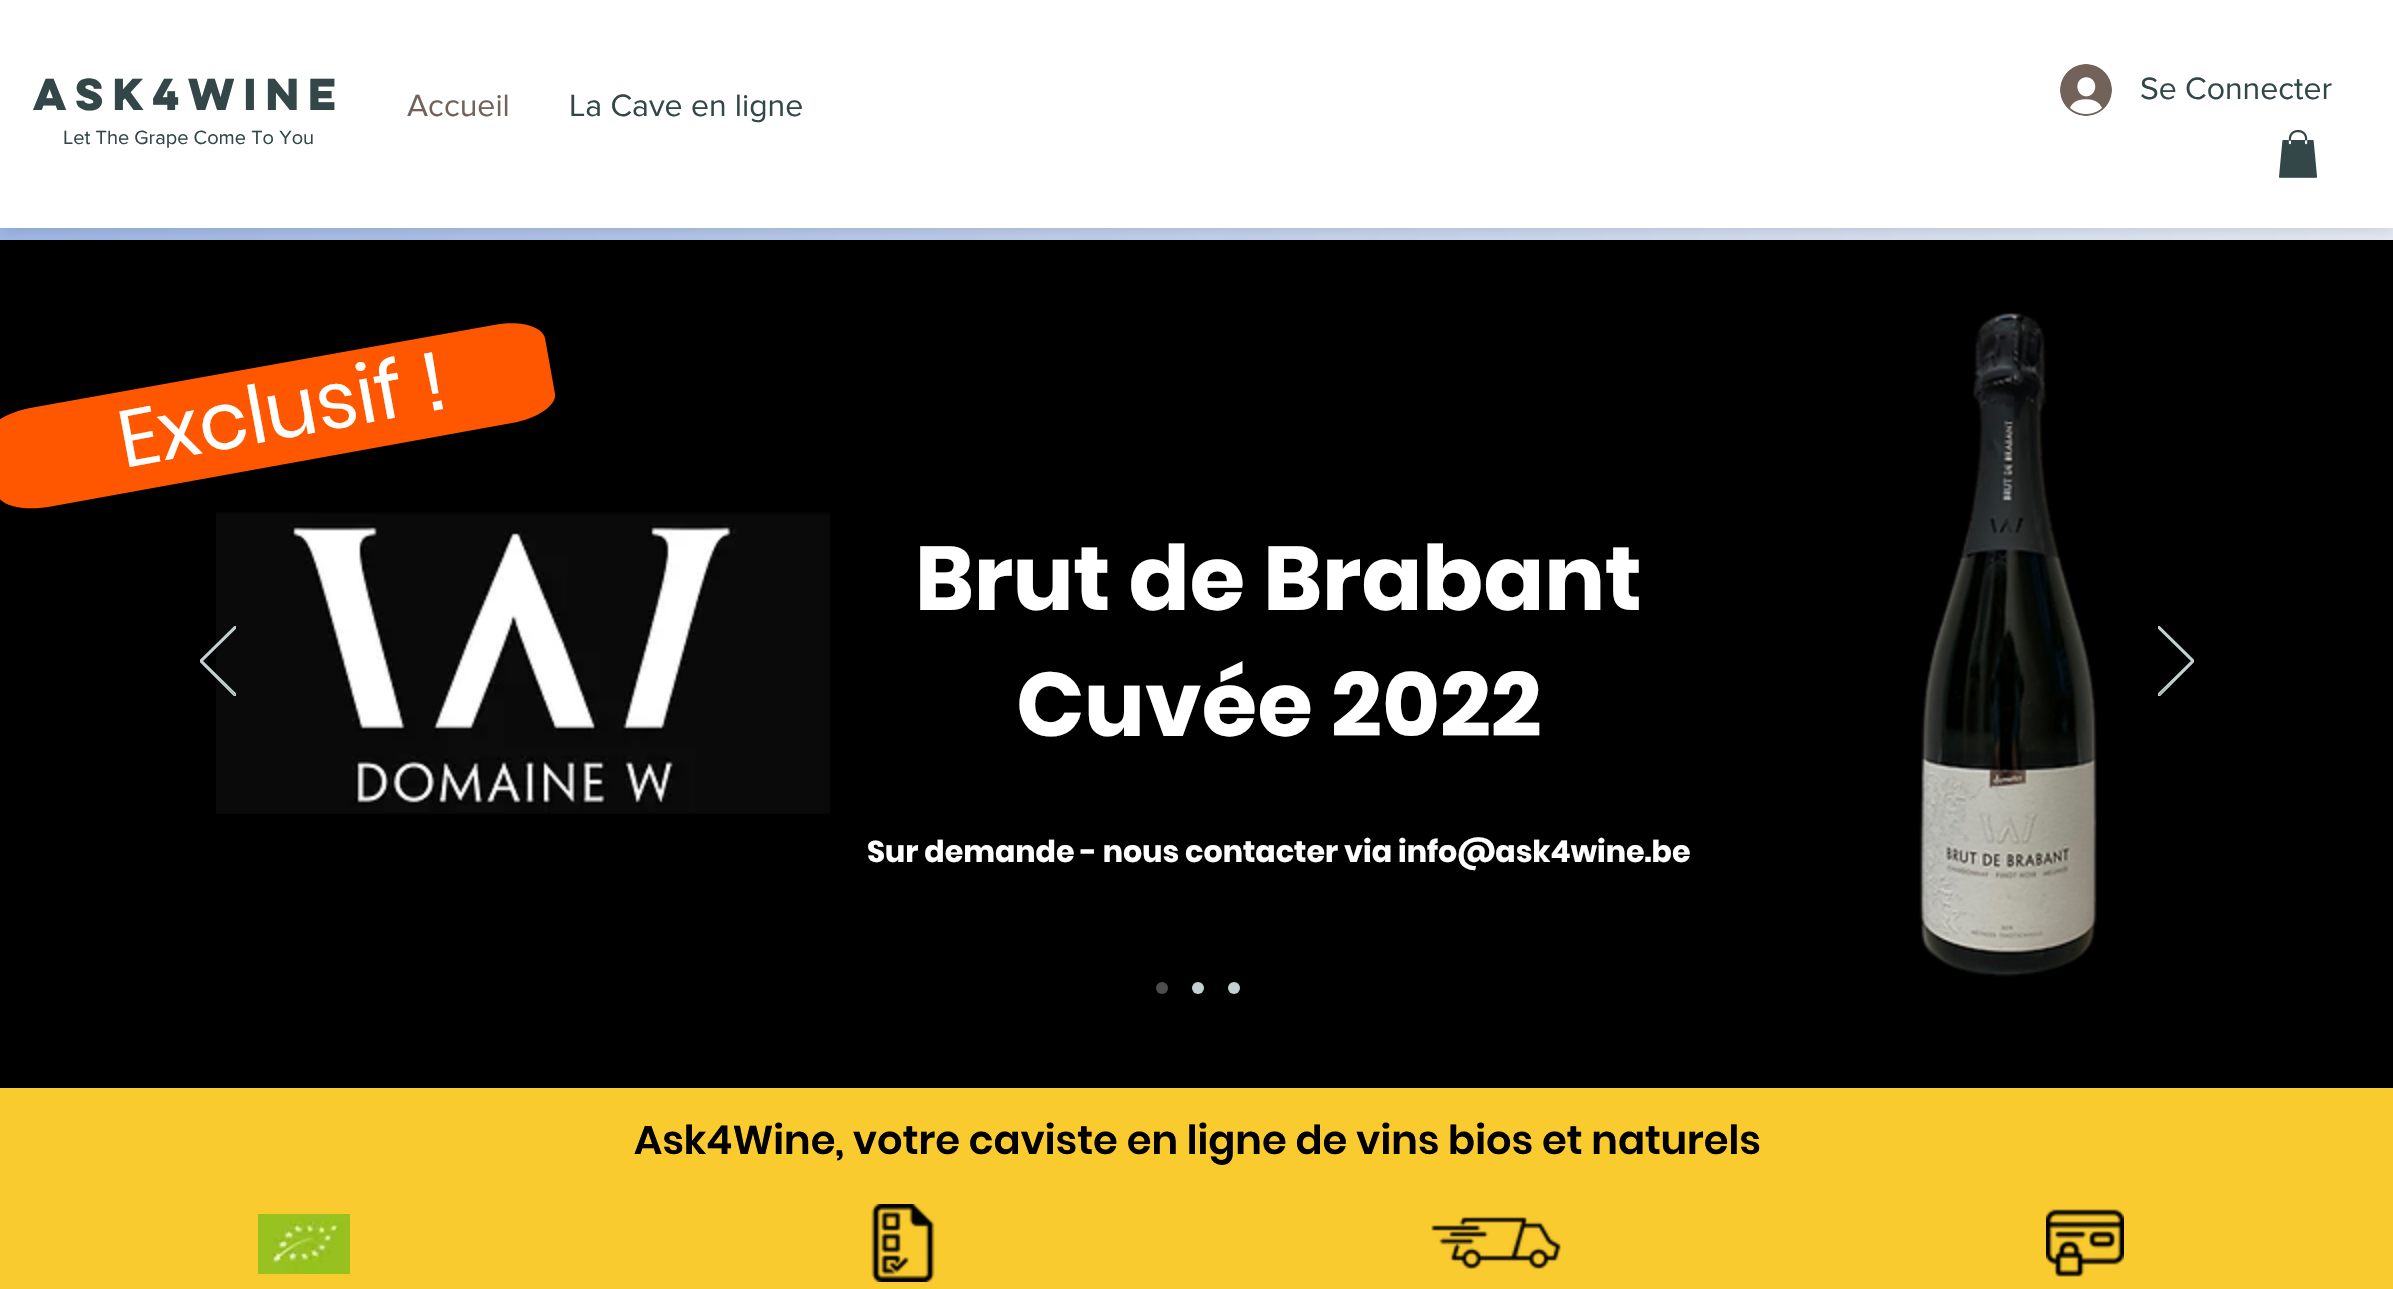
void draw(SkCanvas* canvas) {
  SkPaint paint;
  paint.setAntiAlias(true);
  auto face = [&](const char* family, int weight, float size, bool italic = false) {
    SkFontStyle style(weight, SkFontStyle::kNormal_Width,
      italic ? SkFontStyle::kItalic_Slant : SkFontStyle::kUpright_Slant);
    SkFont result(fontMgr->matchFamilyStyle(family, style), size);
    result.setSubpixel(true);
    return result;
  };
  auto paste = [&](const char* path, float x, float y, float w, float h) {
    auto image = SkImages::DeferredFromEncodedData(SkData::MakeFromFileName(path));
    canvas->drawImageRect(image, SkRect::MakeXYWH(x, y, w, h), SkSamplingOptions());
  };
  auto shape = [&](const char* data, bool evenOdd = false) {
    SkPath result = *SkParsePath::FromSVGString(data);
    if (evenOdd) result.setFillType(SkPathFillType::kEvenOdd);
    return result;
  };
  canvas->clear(0xffffffff);
  {
    const SkColor colors[] = {0xff9eb7e5, 0xffe4e9f2};
    const float stops[] = {0, 1};
    const SkPoint ends[] = {{0, 234}, {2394, 234}};
    paint.setShader(SkGradientShader::MakeLinear(ends, colors, stops, 2, SkTileMode::kClamp));
    paint.setAlpha(255);
  }
  canvas->drawRect(SkRect::MakeXYWH(0, 228, 2393, 12), paint);
  paint.setShader(nullptr);
  paint.setColor(0xff000000);
  canvas->drawRect(SkRect::MakeXYWH(0, 240, 2393, 848), paint);
  paint.setColor(0x26000000);
  paint.setMaskFilter(SkMaskFilter::MakeBlur(kNormal_SkBlurStyle, 8));
  canvas->drawRect(SkRect::MakeXYWH(0, 0, 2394, 228), paint);
  paint.setMaskFilter(nullptr);
  paint.setColor(0xffffffff);
  canvas->drawRect(SkRect::MakeXYWH(0, 0, 2393, 228), paint);
  paste("img/1.png", 2060, 64, 52, 52);
  paste("img/2.png", 2279, 130, 39, 48);
  paint.setColor(0xffff5700);
  canvas->drawPath(shape("M512 423L48 507C23 511 0 506-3 494L-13 438C-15 426 5 413 30 408L494 325C519 320 542 326 545 338L555 394C557 405 537 419 512 423Z"), paint);
  paste("img/3.png", 1919, 312, 178, 665);
  paste("img/4.png", 216, 512, 614, 302);
  canvas->save();
  canvas->clipRect(SkRect::MakeXYWH(200, 626, 36, 70));
  paint.setStroke(true);
  paint.setStrokeWidth(1.7f);
  paint.setColor(0xffc2d1d1);
  canvas->drawPath(shape("M235 696L200 661L235 626.5L236 627.5L202 661L236 694.5Z"), paint);
  canvas->restore();
  canvas->save();
  canvas->clipRect(SkRect::MakeXYWH(2158, 626, 36, 70));
  canvas->drawPath(shape("M2159 696L2194 661L2159 626.5L2158 627.5L2192 661L2158 694.5Z"), paint);
  canvas->restore();
  paint.setStroke(false);
  paint.setColor(0xff4d4d4d);
  canvas->drawCircle(1162, 988, 6, paint);
  paint.setColor(0xffc2d1d1);
  canvas->drawCircle(1198, 988, 6, paint);
  canvas->drawCircle(1234, 988, 6, paint);
  paint.setColor(0xfffacb2f);
  canvas->drawRect(SkRect::MakeXYWH(0, 1088, 2393, 82), paint);
  canvas->drawRect(SkRect::MakeXYWH(0, 1170, 2393, 119), paint);
  paste("img/5.png", 258, 1214, 92, 60);
  paste("img/6.png", 871, 1204, 64, 78);
  paste("img/7.png", 1431, 1216, 130, 54);
  paste("img/8.png", 2046, 1209, 78, 68);
  auto f0 = face("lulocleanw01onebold", 700, 40);
  paint.setColor(0xff334748);
  canvas->drawString("Ask4Wine", 33, 110, f0, paint);
  auto f1 = face("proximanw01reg", 400, 20);
  canvas->drawString("Let The Grape Come To You", 63, 144, f1, paint);
  auto f2 = face("proximanw01reg", 400, 32);
  paint.setColor(0xff72625a);
  canvas->drawString("Accueil", 407, 116, f2, paint);
  paint.setColor(0xff334748);
  canvas->drawString("La Cave en ligne", 569, 116, f2, paint);
  canvas->drawString("Se Connecter", 2140, 99, f2, paint);
  auto f3 = face("Poppins", 400, 80);
  paint.setColor(0xffffffff);
  canvas->save();
  canvas->rotate(-10.5f, 124, 468);
  canvas->drawString("Exclusif !", 124, 468, f3, paint);
  canvas->restore();
  auto f4 = face("Poppins", 700, 90);
  canvas->drawString("Brut de Brabant", 915, 610, f4, paint);
  canvas->drawString("Cuvée 2022", 1016, 736, f4, paint);
  auto f5 = face("Poppins", 700, 30);
  canvas->drawString("Sur demande - nous contacter via info@ask4wine.be", 867, 862, f5, paint);
  auto f6 = face("Poppins", 600, 40);
  paint.setColor(0xff000000);
  canvas->drawString("Ask4Wine, votre caviste en ligne de vins bios et naturels", 634, 1154, f6, paint);
}
